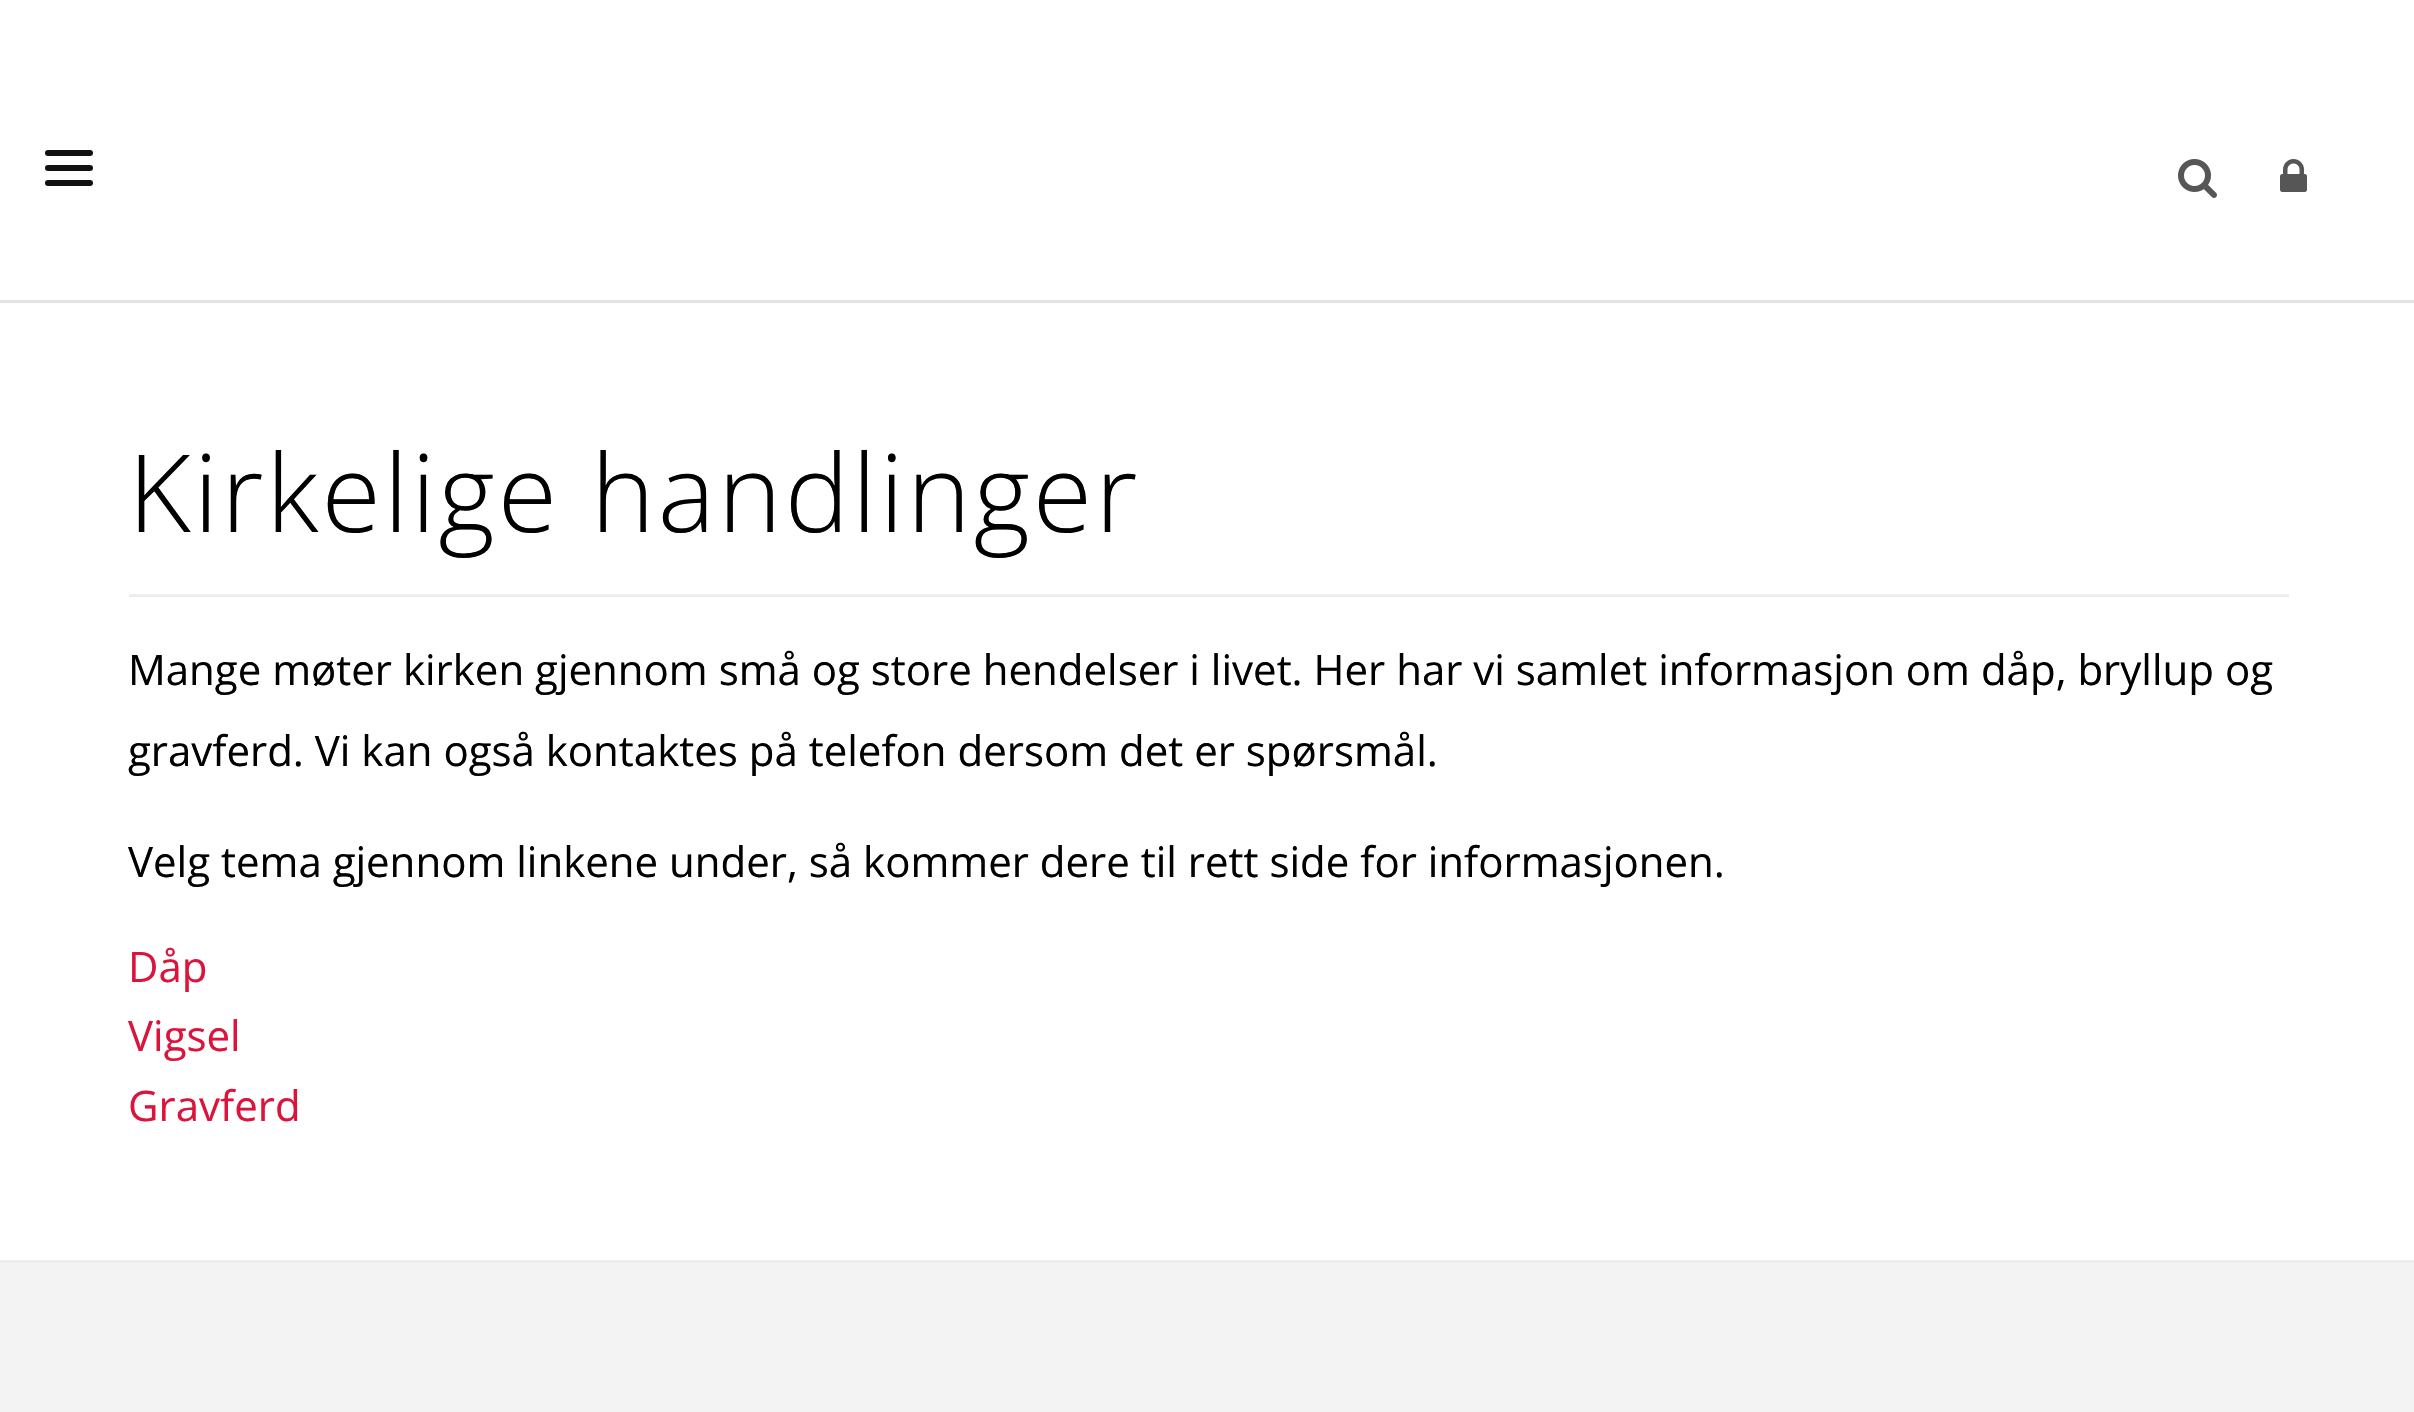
void draw(SkCanvas* canvas) {
  SkPaint paint;
  paint.setAntiAlias(true);
  auto face = [&](const char* family, int weight, float size, bool italic = false) {
    SkFontStyle style(weight, SkFontStyle::kNormal_Width,
      italic ? SkFontStyle::kItalic_Slant : SkFontStyle::kUpright_Slant);
    SkFont result(fontMgr->matchFamilyStyle(family, style), size);
    result.setSubpixel(true);
    return result;
  };
  auto writeSpaced = [&](const char* s, float x, float y, const SkFont& font, const SkPaint& ink, float letter, float word) {
    std::vector<SkGlyphID> glyphs(font.countText(s, strlen(s), SkTextEncoding::kUTF8));
    std::vector<float> xs(glyphs.size());
    font.textToGlyphs(s, strlen(s), SkTextEncoding::kUTF8, glyphs);
    font.getXPos(glyphs, xs, x);
    float extra = 0;
    for (size_t i = 0; i < glyphs.size(); i++) {
      xs[i] += extra;
      extra += letter + word * (glyphs[i] == font.unicharToGlyph(' '));
    }
    canvas->drawTextBlob(SkTextBlob::MakeFromPosHGlyphs(glyphs, xs, y, font), 0, 0, ink);
  };
  auto paste = [&](const char* path, float x, float y, float w, float h) {
    auto image = SkImages::DeferredFromEncodedData(SkData::MakeFromFileName(path));
    canvas->drawImageRect(image, SkRect::MakeXYWH(x, y, w, h), SkSamplingOptions());
  };
  canvas->clear(0xffffffff);
  paint.setColor(0xffe3e3e3);
  canvas->drawRect(SkRect::MakeXYWH(0, 300, 2414, 3), paint);
  paint.setColor(0xff111111);
  canvas->drawRoundRect(SkRect::MakeXYWH(45, 165, 48, 6), 3, 3, paint);
  canvas->drawRoundRect(SkRect::MakeXYWH(45, 150, 48, 6), 3, 3, paint);
  canvas->drawRoundRect(SkRect::MakeXYWH(45, 180, 48, 6), 3, 3, paint);
  paste("img/1.png", 2178, 159, 39, 39);
  paste("img/2.png", 2280, 159, 27, 33);
  {
    const struct { float x, y, w, h; SkColor color; } items[] = {
      {129, 594, 2160, 3, 0xffeeeeee},
      {0, 1263, 2414, 149, 0xfff3f3f3},
      {0, 1260, 2414, 3, 0xffeeeeee},
    };
    for (auto [x, y, w, h, color] : items) {
      paint.setColor(color);
      canvas->drawRect(SkRect::MakeXYWH(x, y, w, h), paint);
    }
  }
  auto f0 = face("Open Sans", 300, 108);
  paint.setColor(0xff000000);
  writeSpaced("Kirkelige handlinger", 128, 532, f0, paint, 3, 0);
  auto f1 = face("Open Sans", 400, 42);
  {
    const struct { const char* s; float x, y; } items[] = {
      {"Mange møter kirken gjennom små og store hendelser i livet. Her har vi samlet informasjon om dåp, bryllup og", 128, 685},
      {"gravferd. Vi kan også kontaktes på telefon dersom det er spørsmål.", 128, 766},
      {"Velg tema gjennom linkene under, så kommer dere til rett side for informasjonen.", 128, 877},
    };
    for (auto [s, x, y] : items) {
      canvas->drawString(s, x, y, f1, paint);
    }
  }
  paint.setColor(0xffdc143c);
  {
    const struct { const char* s; float x, y; } items[] = {
      {"Dåp", 128, 982},
      {"Vigsel", 128, 1051},
      {"Gravferd", 128, 1121},
    };
    for (auto [s, x, y] : items) {
      canvas->drawString(s, x, y, f1, paint);
    }
  }
}
